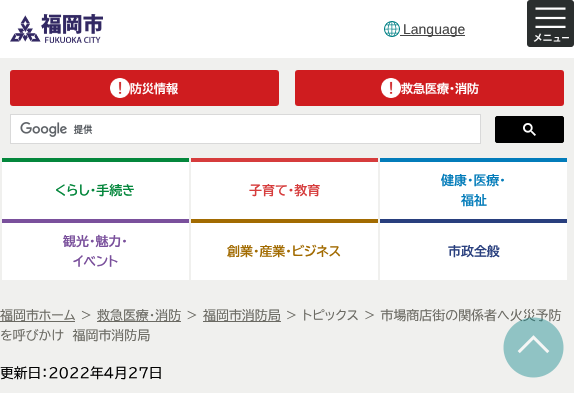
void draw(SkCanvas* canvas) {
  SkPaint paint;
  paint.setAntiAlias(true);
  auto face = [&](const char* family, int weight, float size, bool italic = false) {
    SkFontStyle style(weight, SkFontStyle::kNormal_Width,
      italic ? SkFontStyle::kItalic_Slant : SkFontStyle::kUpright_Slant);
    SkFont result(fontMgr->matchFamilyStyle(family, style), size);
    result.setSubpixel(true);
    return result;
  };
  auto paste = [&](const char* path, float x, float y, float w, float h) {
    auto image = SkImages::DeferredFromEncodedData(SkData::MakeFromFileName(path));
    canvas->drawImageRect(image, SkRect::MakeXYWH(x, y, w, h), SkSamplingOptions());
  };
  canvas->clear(0xfff0f0ee);
  paint.setColor(0xffffffff);
  canvas->drawRect(SkRect::MakeXYWH(0, 0, 574, 58), paint);
  paste("img/1.png", 10, 14, 93, 29);
  paste("img/2.png", 384, 21, 16, 16);
  paint.setColor(0xff444444);
  canvas->drawRect(SkRect::MakeXYWH(400, 35, 65, 1), paint);
  paste("img/3.png", 527, 0, 47, 47);
  paint.setColor(0xffcf1c1f);
  canvas->drawRoundRect(SkRect::MakeXYWH(10, 70, 269, 36), 3, 3, paint);
  paste("img/4.png", 110, 78, 20, 20);
  canvas->drawRoundRect(SkRect::MakeXYWH(295, 70, 269, 36), 3, 3, paint);
  paste("img/4.png", 381, 78, 20, 20);
  paint.setColor(0xffffffff);
  canvas->drawRect(SkRect::MakeXYWH(10.5f, 114.5f, 470, 29), paint);
  paint.setStroke(true);
  paint.setStrokeWidth(1);
  paint.setColor(0xffd9d9d9);
  canvas->drawRect(SkRect::MakeXYWH(10.5f, 114.5f, 470, 29), paint);
  paste("img/5.png", 20, 122, 73, 15);
  paint.setStroke(false);
  paint.setColor(0xff000000);
  canvas->drawRoundRect(SkRect::MakeXYWH(495.5f, 116.5f, 68, 26), 1.5f, 1.5f, paint);
  paint.setStroke(true);
  canvas->drawRoundRect(SkRect::MakeXYWH(495.5f, 116.5f, 68, 26), 1.5f, 1.5f, paint);
  paste("img/6.png", 523, 123, 13, 13);
  paint.setStroke(false);
  {
    const struct { float x, y, w, h; SkColor color; } items[] = {
      {2, 162, 187, 57, 0xffffffff},
      {2, 158, 187, 4, 0xff04873c},
      {191, 162, 187, 57, 0xffffffff},
      {191, 158, 187, 4, 0xffd63c3c},
      {380, 162, 187, 57, 0xffffffff},
      {380, 158, 187, 4, 0xff037cba},
      {2, 223, 187, 57, 0xffffffff},
      {2, 219, 187, 4, 0xff7a509c},
      {191, 223, 187, 57, 0xffffffff},
      {191, 219, 187, 4, 0xffa26b01},
      {380, 223, 187, 57, 0xffffffff},
      {380, 219, 187, 4, 0xff293f7e},
      {0, 321, 75, 1, 0xff6b6a63},
      {97, 321, 84, 1, 0xff6b6a63},
      {203, 321, 78, 1, 0xff6b6a63},
    };
    for (auto [x, y, w, h, color] : items) {
      paint.setColor(color);
      canvas->drawRect(SkRect::MakeXYWH(x, y, w, h), paint);
    }
  }
  auto f0 = face("Liberation Sans", 400, 14);
  paint.setColor(0xff444444);
  canvas->drawString("Language", 403, 34, f0, paint);
  auto f1 = face("BIZ UDPGothic", 700, 12);
  paint.setColor(0xffffffff);
  canvas->drawString("防災情報", 130, 93, f1, paint);
  canvas->drawString("救急医療・消防", 401, 93, f1, paint);
  auto f2 = face("BIZ UDPGothic", 700, 12.95f);
  paint.setColor(0xff04873c);
  canvas->drawString("くらし・手続き", 55, 195, f2, paint);
  paint.setColor(0xffd63c3c);
  canvas->drawString("子育て・教育", 249, 195, f2, paint);
  paint.setColor(0xff037cba);
  canvas->drawString("健康・医療・", 441, 185, f2, paint);
  canvas->drawString("福祉", 461, 205, f2, paint);
  paint.setColor(0xff7a509c);
  canvas->drawString("観光・魅力・", 63, 246, f2, paint);
  canvas->drawString("イベント", 73, 266, f2, paint);
  paint.setColor(0xffa26b01);
  canvas->drawString("創業・産業・ビジネス", 227, 256, f2, paint);
  paint.setColor(0xff293f7e);
  canvas->drawString("市政全般", 448, 256, f2, paint);
  auto f3 = face("BIZ UDPGothic", 400, 12.95f);
  paint.setColor(0xff6b6a63);
  {
    const struct { const char* s; float x, y; } items[] = {
      {"福岡市ホーム ＞", 0, 320},
      {"救急医療・消防 ＞", 97, 320},
      {"福岡市消防局 ＞ トピックス ＞ 市場商店街の関係者へ火災予防", 203, 320},
      {"を呼びかけ　福岡市消防局", 0, 340},
    };
    for (auto [s, x, y] : items) {
      canvas->drawString(s, x, y, f3, paint);
    }
  }
  auto f4 = face("BIZ UDPGothic", 400, 13.75f);
  paint.setColor(0xff000000);
  canvas->drawString("更新日：2022年4月27日", 0, 378, f4, paint);
  paste("img/7.png", 503, 317, 61, 61);
}
